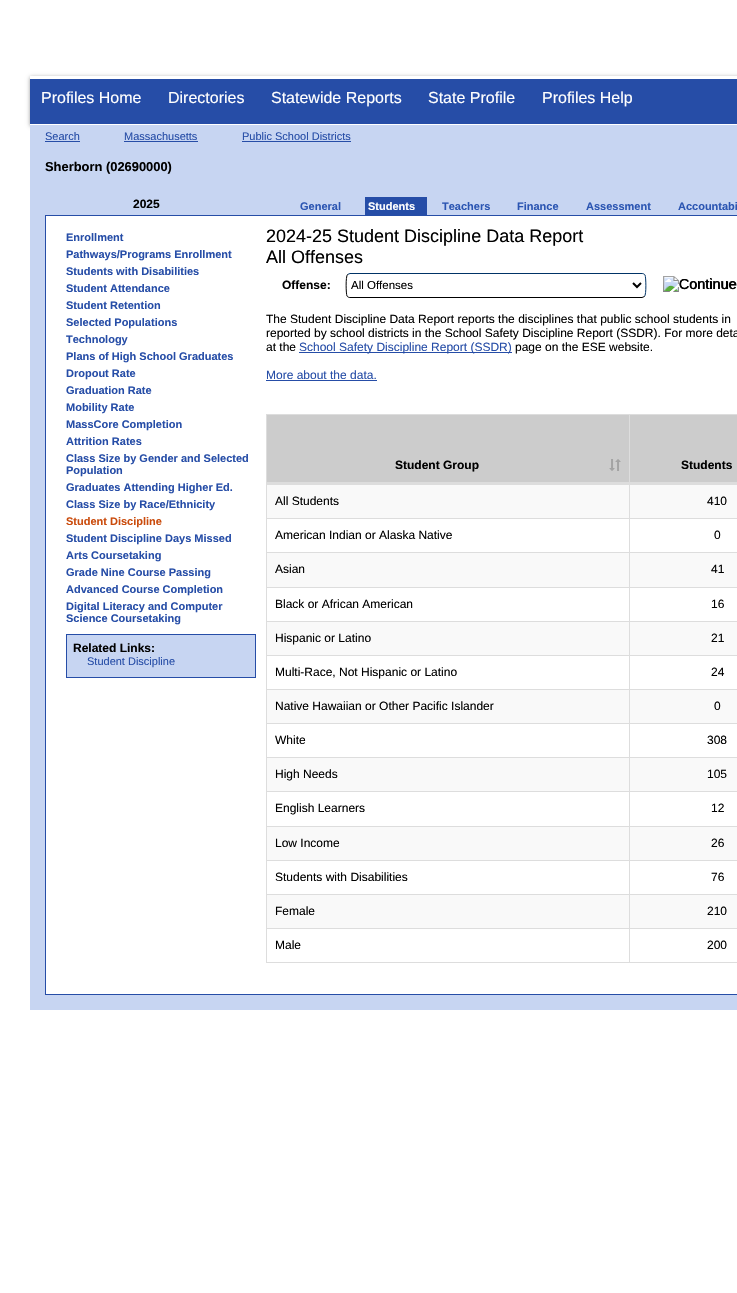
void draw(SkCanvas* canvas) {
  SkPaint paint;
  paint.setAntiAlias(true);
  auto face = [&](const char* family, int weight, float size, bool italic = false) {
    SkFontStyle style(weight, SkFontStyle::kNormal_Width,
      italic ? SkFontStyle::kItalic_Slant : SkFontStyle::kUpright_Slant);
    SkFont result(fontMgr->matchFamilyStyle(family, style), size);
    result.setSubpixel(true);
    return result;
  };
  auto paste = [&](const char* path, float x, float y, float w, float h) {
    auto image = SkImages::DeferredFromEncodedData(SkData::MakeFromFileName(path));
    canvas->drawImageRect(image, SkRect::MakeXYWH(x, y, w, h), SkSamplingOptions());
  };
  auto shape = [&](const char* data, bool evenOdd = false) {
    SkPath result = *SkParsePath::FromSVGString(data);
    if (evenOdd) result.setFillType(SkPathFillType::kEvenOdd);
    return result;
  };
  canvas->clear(0xffffffff);
  paint.setColor(0xff9c9c9c);
  paint.setMaskFilter(SkMaskFilter::MakeBlur(kNormal_SkBlurStyle, 2));
  canvas->drawRect(SkRect::MakeXYWH(30, 77, 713, 49), paint);
  paint.setMaskFilter(nullptr);
  {
    const struct { float x, y, w, h; SkColor color; } items[] = {
      {30, 76, 707, 3, 0xffffffff},
      {30, 79, 707, 45, 0xff264da7},
      {30, 124, 707, 1, 0xffffffff},
      {30, 125, 707, 885, 0xffc7d5f2},
      {45, 141, 35, 1, 0xff264da7},
      {124, 141, 74, 1, 0xff264da7},
      {242, 141, 109, 1, 0xff264da7},
      {365, 197, 62, 18, 0xff264da7},
    };
    for (auto [x, y, w, h, color] : items) {
      paint.setColor(color);
      canvas->drawRect(SkRect::MakeXYWH(x, y, w, h), paint);
    }
  }
  paint.setColor(0xffffffff);
  canvas->drawRect(SkRect::MakeXYWH(45.5f, 215.5f, 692, 779), paint);
  paint.setStroke(true);
  paint.setStrokeWidth(1);
  paint.setColor(0xff264da7);
  canvas->drawRect(SkRect::MakeXYWH(45.5f, 215.5f, 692, 779), paint);
  paint.setStroke(false);
  paint.setColor(0xffc7d5f2);
  canvas->drawRect(SkRect::MakeXYWH(66.5f, 634.5f, 189, 43), paint);
  paint.setStroke(true);
  paint.setColor(0xff264da7);
  canvas->drawRect(SkRect::MakeXYWH(66.5f, 634.5f, 189, 43), paint);
  paint.setColor(0xff003366);
  canvas->drawPath(shape("M347.5 274.5L350 273.5H642C643 273.5 644.5 274 645 275C646 277 646.5 294.5 644.5 296.5"), paint);
  paint.setColor(0xff000000);
  canvas->drawPath(shape("M644.5 296.5L642 297.5H350C349 297.5 347.5 297 347 296C346 294 345.5 276.5 347.5 274.5"), paint);
  paint.setStrokeWidth(2);
  canvas->drawPath(shape("M633 283L637 287L641 283"), paint);
  paste("img/1.png", 663, 276, 73, 16);
  paint.setStroke(false);
  paint.setColor(0xff264da7);
  canvas->drawRect(SkRect::MakeXYWH(299, 352, 213, 1), paint);
  canvas->drawRect(SkRect::MakeXYWH(266, 380, 111, 1), paint);
  paint.setStroke(true);
  paint.setStrokeWidth(1);
  paint.setColor(0xffdddddd);
  canvas->drawRect(SkRect::MakeXYWH(266.5f, 414.5f, 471, 548), paint);
  paint.setStroke(false);
  {
    const struct { float x, y, w, h; SkColor color; } items[] = {
      {267, 415, 362, 67, 0xffcccccc},
      {267, 485, 470, 33, 0xfff9f9f9},
      {267, 484, 470, 1, 0xffdddddd},
      {629, 415, 1, 103, 0xffdddddd},
      {267, 482, 470, 2, 0xffdddddd},
    };
    for (auto [x, y, w, h, color] : items) {
      paint.setColor(color);
      canvas->drawRect(SkRect::MakeXYWH(x, y, w, h), paint);
    }
  }
  paste("img/2.png", 609, 459, 12, 12);
  {
    const struct { float x, y, w, h; SkColor color; } items[] = {
      {630, 415, 107, 67, 0xffcccccc},
      {267, 518, 470, 1, 0xffdddddd},
      {629, 518, 1, 34, 0xffdddddd},
      {267, 553, 470, 34, 0xfff9f9f9},
      {267, 552, 470, 1, 0xffdddddd},
      {629, 552, 1, 35, 0xffdddddd},
      {267, 587, 470, 1, 0xffdddddd},
      {629, 587, 1, 34, 0xffdddddd},
      {267, 622, 470, 33, 0xfff9f9f9},
      {267, 621, 470, 1, 0xffdddddd},
      {629, 621, 1, 34, 0xffdddddd},
      {267, 655, 470, 1, 0xffdddddd},
      {629, 655, 1, 34, 0xffdddddd},
      {267, 690, 470, 33, 0xfff9f9f9},
      {267, 689, 470, 1, 0xffdddddd},
      {629, 689, 1, 34, 0xffdddddd},
      {267, 723, 470, 1, 0xffdddddd},
      {629, 723, 1, 34, 0xffdddddd},
      {267, 758, 470, 33, 0xfff9f9f9},
      {267, 757, 470, 1, 0xffdddddd},
      {629, 757, 1, 34, 0xffdddddd},
      {267, 791, 470, 1, 0xffdddddd},
      {629, 791, 1, 35, 0xffdddddd},
      {267, 827, 470, 33, 0xfff9f9f9},
      {267, 826, 470, 1, 0xffdddddd},
      {629, 826, 1, 34, 0xffdddddd},
      {267, 860, 470, 1, 0xffdddddd},
      {629, 860, 1, 34, 0xffdddddd},
      {267, 895, 470, 33, 0xfff9f9f9},
      {267, 894, 470, 1, 0xffdddddd},
      {629, 894, 1, 34, 0xffdddddd},
      {267, 928, 470, 1, 0xffdddddd},
      {629, 928, 1, 34, 0xffdddddd},
    };
    for (auto [x, y, w, h, color] : items) {
      paint.setColor(color);
      canvas->drawRect(SkRect::MakeXYWH(x, y, w, h), paint);
    }
  }
  auto f0 = face("Liberation Sans", 400, 16);
  paint.setColor(0xffffffff);
  {
    const struct { const char* s; float x, y; } items[] = {
      {"Profiles Home", 41, 103},
      {"Directories", 168, 103},
      {"Statewide Reports", 271, 103},
      {"State Profile", 428, 103},
      {"Profiles Help", 542, 103},
    };
    for (auto [s, x, y] : items) {
      canvas->drawString(s, x, y, f0, paint);
    }
  }
  auto f1 = face("Liberation Sans", 400, 11);
  paint.setColor(0xff264da7);
  {
    const struct { const char* s; float x, y; } items[] = {
      {"Search", 45, 140},
      {"Massachusetts", 124, 140},
      {"Public School Districts", 242, 140},
    };
    for (auto [s, x, y] : items) {
      canvas->drawString(s, x, y, f1, paint);
    }
  }
  auto f2 = face("Liberation Sans", 700, 12.9f);
  paint.setColor(0xff000000);
  canvas->drawString("Sherborn (02690000)", 45, 171, f2, paint);
  auto f3 = face("Liberation Sans", 700, 12);
  canvas->drawString("2025", 133, 208, f3, paint);
  auto f4 = face("Liberation Sans", 700, 11);
  paint.setColor(0xff2b55b2);
  canvas->drawString("General", 300, 210, f4, paint);
  paint.setColor(0xffffffff);
  canvas->drawString("Students", 368, 210, f4, paint);
  paint.setColor(0xff2b55b2);
  {
    const struct { const char* s; float x, y; } items[] = {
      {"Teachers", 442, 210},
      {"Finance", 517, 210},
      {"Assessment", 586, 210},
      {"Accountabi", 678, 210},
    };
    for (auto [s, x, y] : items) {
      canvas->drawString(s, x, y, f4, paint);
    }
  }
  paint.setColor(0xff264da7);
  {
    const struct { const char* s; float x, y; } items[] = {
      {"Enrollment", 66, 241},
      {"Pathways/Programs Enrollment", 66, 258},
      {"Students with Disabilities", 66, 275},
      {"Student Attendance", 66, 292},
      {"Student Retention", 66, 309},
      {"Selected Populations", 66, 326},
      {"Technology", 66, 343},
      {"Plans of High School Graduates", 66, 360},
      {"Dropout Rate", 66, 377},
      {"Graduation Rate", 66, 394},
      {"Mobility Rate", 66, 411},
      {"MassCore Completion", 66, 428},
      {"Attrition Rates", 66, 445},
      {"Class Size by Gender and Selected", 66, 462},
      {"Population", 66, 474},
      {"Graduates Attending Higher Ed.", 66, 491},
      {"Class Size by Race/Ethnicity", 66, 508},
    };
    for (auto [s, x, y] : items) {
      canvas->drawString(s, x, y, f4, paint);
    }
  }
  paint.setColor(0xffca4b0c);
  canvas->drawString("Student Discipline", 66, 525, f4, paint);
  paint.setColor(0xff264da7);
  {
    const struct { const char* s; float x, y; } items[] = {
      {"Student Discipline Days Missed", 66, 542},
      {"Arts Coursetaking", 66, 559},
      {"Grade Nine Course Passing", 66, 576},
      {"Advanced Course Completion", 66, 593},
      {"Digital Literacy and Computer", 66, 610},
      {"Science Coursetaking", 66, 622},
    };
    for (auto [s, x, y] : items) {
      canvas->drawString(s, x, y, f4, paint);
    }
  }
  paint.setColor(0xff000000);
  canvas->drawString("Related Links:", 73, 652, f3, paint);
  paint.setColor(0xff264da7);
  canvas->drawString("Student Discipline", 87, 665, f1, paint);
  auto f5 = face("Liberation Sans", 400, 18);
  paint.setColor(0xff000000);
  canvas->drawString("2024-25 Student Discipline Data Report", 266, 242, f5, paint);
  canvas->drawString("All Offenses", 266, 263, f5, paint);
  canvas->drawString("Offense:", 282, 289, f3, paint);
  auto f6 = face("Liberation Sans", 400, 11.5f);
  canvas->drawString("All Offenses", 351, 289, f6, paint);
  auto f7 = face("Liberation Sans", 400, 14.5f);
  canvas->drawString("Continue", 679, 289, f7, paint);
  auto f8 = face("Liberation Sans", 400, 12);
  {
    const struct { const char* s; float x, y; } items[] = {
      {"The Student Discipline Data Report reports the disciplines that public school students in", 266, 323},
      {"reported by school districts in the School Safety Discipline Report (SSDR). For more deta", 266, 337},
      {"at the", 266, 351},
    };
    for (auto [s, x, y] : items) {
      canvas->drawString(s, x, y, f8, paint);
    }
  }
  paint.setColor(0xff264da7);
  canvas->drawString("School Safety Discipline Report (SSDR)", 299, 351, f8, paint);
  paint.setColor(0xff000000);
  canvas->drawString("page on the ESE website.", 515, 351, f8, paint);
  paint.setColor(0xff264da7);
  canvas->drawString("More about the data.", 266, 379, f8, paint);
  paint.setColor(0xff000000);
  canvas->drawString("Student Group", 395, 469, f3, paint);
  canvas->drawString("Students", 681, 469, f3, paint);
  {
    const struct { const char* s; float x, y; } items[] = {
      {"All Students", 275, 505},
      {"410", 707, 505},
      {"American Indian or Alaska Native", 275, 539},
      {"0", 714, 539},
      {"Asian", 275, 573},
      {"41", 711, 573},
      {"Black or African American", 275, 608},
      {"16", 711, 608},
      {"Hispanic or Latino", 275, 642},
      {"21", 711, 642},
      {"Multi-Race, Not Hispanic or Latino", 275, 676},
      {"24", 711, 676},
      {"Native Hawaiian or Other Pacific Islander", 275, 710},
      {"0", 714, 710},
      {"White", 275, 744},
      {"308", 707, 744},
      {"High Needs", 275, 778},
      {"105", 707, 778},
      {"English Learners", 275, 812},
      {"12", 711, 812},
      {"Low Income", 275, 847},
      {"26", 711, 847},
      {"Students with Disabilities", 275, 881},
      {"76", 711, 881},
      {"Female", 275, 915},
      {"210", 707, 915},
      {"Male", 275, 949},
      {"200", 707, 949},
    };
    for (auto [s, x, y] : items) {
      canvas->drawString(s, x, y, f8, paint);
    }
  }
}
